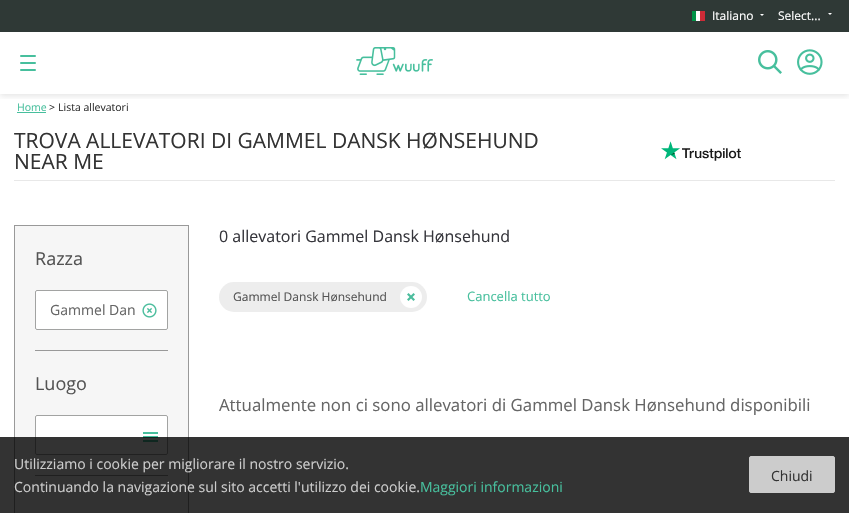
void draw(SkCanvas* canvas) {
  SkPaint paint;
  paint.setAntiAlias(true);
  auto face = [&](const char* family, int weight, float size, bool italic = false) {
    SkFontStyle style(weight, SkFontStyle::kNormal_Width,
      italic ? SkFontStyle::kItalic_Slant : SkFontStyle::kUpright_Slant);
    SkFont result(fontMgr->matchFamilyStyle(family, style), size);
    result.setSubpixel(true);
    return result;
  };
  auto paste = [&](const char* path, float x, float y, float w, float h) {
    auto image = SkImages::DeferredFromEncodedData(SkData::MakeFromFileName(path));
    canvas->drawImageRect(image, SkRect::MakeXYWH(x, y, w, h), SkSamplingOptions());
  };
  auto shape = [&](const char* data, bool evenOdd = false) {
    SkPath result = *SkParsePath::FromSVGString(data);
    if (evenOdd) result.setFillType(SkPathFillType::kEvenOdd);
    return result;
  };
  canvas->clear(0xffffffff);
  canvas->save();
  canvas->clipRect(SkRect::MakeXYWH(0, 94, 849, 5));
  paint.setColor(0x1a000000);
  paint.setMaskFilter(SkMaskFilter::MakeBlur(kNormal_SkBlurStyle, 3));
  canvas->drawRect(SkRect::MakeXYWH(0, 2, 849, 94), paint);
  paint.setMaskFilter(nullptr);
  canvas->restore();
  {
    const struct { float x, y, w, h; SkColor color; } items[] = {
      {0, 0, 849, 32, 0xff2f3936},
      {696, 11, 4, 10, 0xffffffff},
      {692, 11, 4, 10, 0xff009246},
      {700, 11, 5, 10, 0xffce2b37},
    };
    for (auto [x, y, w, h, color] : items) {
      paint.setColor(color);
      canvas->drawRect(SkRect::MakeXYWH(x, y, w, h), paint);
    }
  }
  paint.setColor(0xffffffff);
  canvas->drawPath(shape("M760 14H764L762 16Z"), paint);
  canvas->drawPath(shape("M828 13H832L830 15Z"), paint);
  paint.setColor(0xff47bf9d);
  canvas->drawRoundRect(SkRect::MakeXYWH(20, 55, 16, 2), 1, 1, paint);
  canvas->drawRoundRect(SkRect::MakeXYWH(20, 62, 16, 2), 1, 1, paint);
  canvas->drawRoundRect(SkRect::MakeXYWH(20, 69, 16, 2), 1, 1, paint);
  paste("img/1.png", 356, 47, 77, 28);
  paste("img/2.png", 758, 50, 24, 24);
  paste("img/3.png", 797, 49, 26, 26);
  paint.setColor(0xffe8e8e8);
  canvas->drawRect(SkRect::MakeXYWH(14, 180, 821, 1), paint);
  paint.setColor(0xff47bf9d);
  canvas->drawRect(SkRect::MakeXYWH(17, 112, 29, 1), paint);
  paste("img/4.png", 661, 141, 80, 20);
  paint.setColor(0xfff6f6f6);
  canvas->drawRect(SkRect::MakeXYWH(14.5f, 225.5f, 174, 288), paint);
  paint.setStroke(true);
  paint.setStrokeWidth(1);
  paint.setColor(0xff999999);
  canvas->drawRect(SkRect::MakeXYWH(14.5f, 225.5f, 174, 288), paint);
  paint.setStroke(false);
  paint.setColor(0xffffffff);
  canvas->drawRect(SkRect::MakeXYWH(35, 290, 133, 40), paint);
  paint.setStroke(true);
  paint.setColor(0xffa2a3a2);
  canvas->drawRoundRect(SkRect::MakeXYWH(35.5f, 290.5f, 132, 39), 1.5f, 1.5f, paint);
  paste("img/5.png", 142, 303, 15, 15);
  paint.setStroke(false);
  {
    const struct { float x, y, w, h; SkColor color; } items[] = {
      {35, 350, 133, 1, 0xff999999},
      {35, 415, 133, 40, 0xffffffff},
      {143, 432, 15, 2, 0xff47bf9d},
      {143, 436, 15, 2, 0xff47bf9d},
      {143, 440, 15, 2, 0xff47bf9d},
    };
    for (auto [x, y, w, h, color] : items) {
      paint.setColor(color);
      canvas->drawRect(SkRect::MakeXYWH(x, y, w, h), paint);
    }
  }
  paint.setStroke(true);
  paint.setColor(0xffa2a3a2);
  canvas->drawRoundRect(SkRect::MakeXYWH(35.5f, 415.5f, 132, 39), 1.5f, 1.5f, paint);
  paint.setStroke(false);
  paint.setColor(0xff999999);
  canvas->drawRect(SkRect::MakeXYWH(35, 475, 133, 1), paint);
  paint.setColor(0xffededed);
  canvas->drawRoundRect(SkRect::MakeXYWH(219, 282, 208, 30), 15, 15, paint);
  paint.setColor(0xffffffff);
  canvas->drawCircle(411, 297, 11, paint);
  paste("img/6.png", 407, 293, 8, 8);
  paint.setColor(0xcc000000);
  canvas->drawRect(SkRect::MakeXYWH(0, 437, 849, 76), paint);
  paint.setColor(0xffcccccc);
  canvas->drawRoundRect(SkRect::MakeXYWH(749.5f, 456.5f, 85, 36), 1.5f, 1.5f, paint);
  paint.setStroke(true);
  canvas->drawRoundRect(SkRect::MakeXYWH(749.5f, 456.5f, 85, 36), 1.5f, 1.5f, paint);
  auto f0 = face("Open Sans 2", 400, 12);
  paint.setStroke(false);
  paint.setColor(0xffffffff);
  canvas->drawString("Italiano", 712, 20, f0, paint);
  canvas->drawString("Select...", 778, 20, f0, paint);
  auto f1 = face("Open Sans", 400, 10.5f);
  paint.setColor(0xff47bf9d);
  canvas->drawString("Home", 17, 111, f1, paint);
  auto f2 = face("Open Sans 2", 400, 10.5f);
  paint.setColor(0xff333333);
  canvas->drawString(">", 49, 111, f2, paint);
  canvas->drawString("Lista allevatori", 58, 111, f1, paint);
  auto f3 = face("Open Sans", 400, 21);
  canvas->drawString("TROVA ALLEVATORI DI GAMMEL DANSK HØNSEHUND", 14, 148, f3, paint);
  canvas->drawString("NEAR ME", 14, 169, f3, paint);
  auto f4 = face("Open Sans 2", 400, 18);
  paint.setColor(0xff545454);
  canvas->drawString("Razza", 35, 265, f4, paint);
  auto f5 = face("Open Sans 2", 400, 14);
  paint.setColor(0xff666666);
  canvas->drawString("Gammel Dan", 50, 315, f5, paint);
  paint.setColor(0xff545454);
  canvas->drawString("Luogo", 35, 390, f4, paint);
  auto f6 = face("Open Sans", 400, 16);
  paint.setColor(0xff36363c);
  canvas->drawString("0 allevatori Gammel Dansk Hønsehund", 219, 242, f6, paint);
  paint.setColor(0xff545454);
  canvas->drawString("Gammel Dansk Hønsehund", 233, 301, f0, paint);
  auto f7 = face("Open Sans 2", 400, 13);
  paint.setColor(0xff47bf9d);
  canvas->drawString("Cancella tutto", 467, 301, f7, paint);
  auto f8 = face("Open Sans", 400, 16.8f);
  paint.setColor(0xff666666);
  canvas->drawString("Attualmente non ci sono allevatori di Gammel Dansk Hønsehund disponibili", 219, 411, f8, paint);
  paint.setColor(0xffcccccc);
  canvas->drawString("Utilizziamo i cookie per migliorare il nostro servizio.", 14, 469, f5, paint);
  canvas->drawString("Continuando la navigazione sul sito accetti l'utilizzo dei cookie.", 14, 492, f5, paint);
  auto f9 = face("Open Sans", 400, 14);
  paint.setColor(0xff47bf9d);
  canvas->drawString("Maggiori informazioni", 420, 492, f9, paint);
  paint.setColor(0xff333333);
  canvas->drawString("Chiudi", 771, 481, f9, paint);
}
